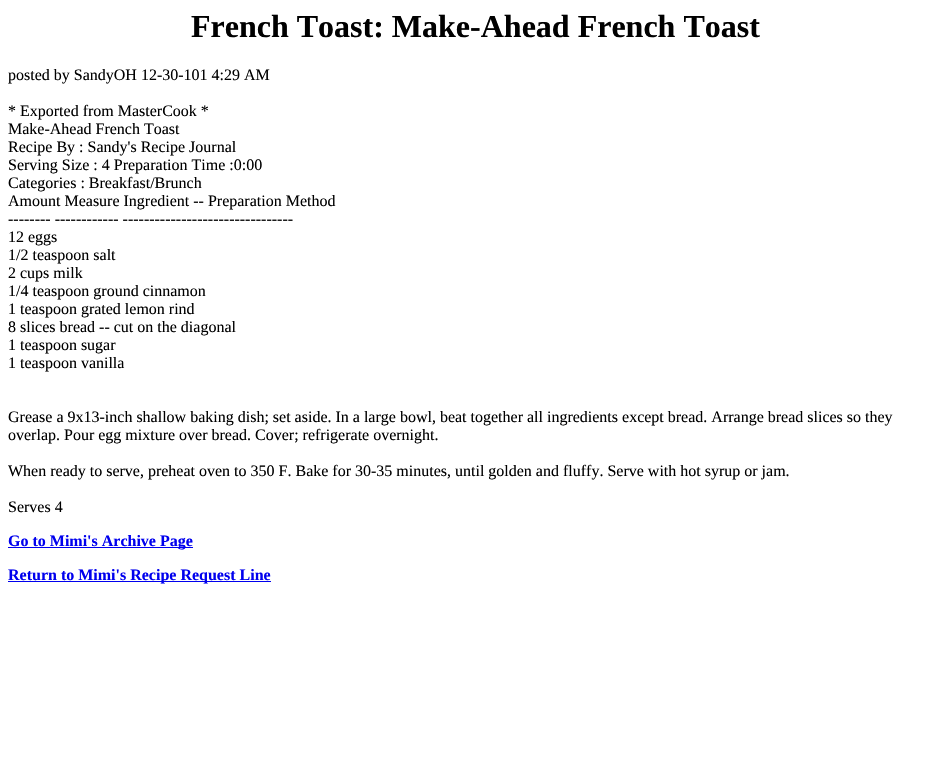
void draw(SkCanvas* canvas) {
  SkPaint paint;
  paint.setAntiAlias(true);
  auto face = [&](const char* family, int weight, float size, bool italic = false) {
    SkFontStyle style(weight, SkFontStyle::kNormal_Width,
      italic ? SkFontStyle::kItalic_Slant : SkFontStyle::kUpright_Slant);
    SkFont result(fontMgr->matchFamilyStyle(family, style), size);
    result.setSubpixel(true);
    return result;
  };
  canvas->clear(0xffffffff);
  paint.setColor(0xff0000ee);
  canvas->drawRect(SkRect::MakeXYWH(8, 547, 185, 1), paint);
  canvas->drawRect(SkRect::MakeXYWH(8, 581, 263, 1), paint);
  auto f0 = face("Liberation Serif", 700, 32);
  paint.setColor(0xff000000);
  canvas->drawString("French Toast: Make-Ahead French Toast", 191, 37, f0, paint);
  auto f1 = face("Liberation Serif", 400, 16);
  {
    const struct { const char* s; float x, y; } items[] = {
      {"posted by SandyOH 12-30-101 4:29 AM", 8, 80},
      {"* Exported from MasterCook *", 8, 116},
      {"Make-Ahead French Toast", 8, 134},
      {"Recipe By : Sandy's Recipe Journal", 8, 152},
      {"Serving Size : 4 Preparation Time :0:00", 8, 170},
      {"Categories : Breakfast/Brunch", 8, 188},
      {"Amount Measure Ingredient -- Preparation Method", 8, 206},
      {"-------- ------------ --------------------------------", 8, 224},
      {"12 eggs", 8, 242},
      {"1/2 teaspoon salt", 8, 260},
      {"2 cups milk", 8, 278},
      {"1/4 teaspoon ground cinnamon", 8, 296},
      {"1 teaspoon grated lemon rind", 8, 314},
      {"8 slices bread -- cut on the diagonal", 8, 332},
      {"1 teaspoon sugar", 8, 350},
      {"1 teaspoon vanilla", 8, 368},
      {"Grease a 9x13-inch shallow baking dish; set aside. In a large bowl, beat together all ingredients except bread. Arrange bread slices so they", 8, 422},
      {"overlap. Pour egg mixture over bread. Cover; refrigerate overnight.", 8, 440},
      {"When ready to serve, preheat oven to 350 F. Bake for 30-35 minutes, until golden and fluffy. Serve with hot syrup or jam.", 8, 476},
      {"Serves 4", 8, 512},
    };
    for (auto [s, x, y] : items) {
      canvas->drawString(s, x, y, f1, paint);
    }
  }
  auto f2 = face("Liberation Serif", 700, 16);
  paint.setColor(0xff0000ee);
  canvas->drawString("Go to Mimi's Archive Page", 8, 546, f2, paint);
  canvas->drawString("Return to Mimi's Recipe Request Line", 8, 580, f2, paint);
}
